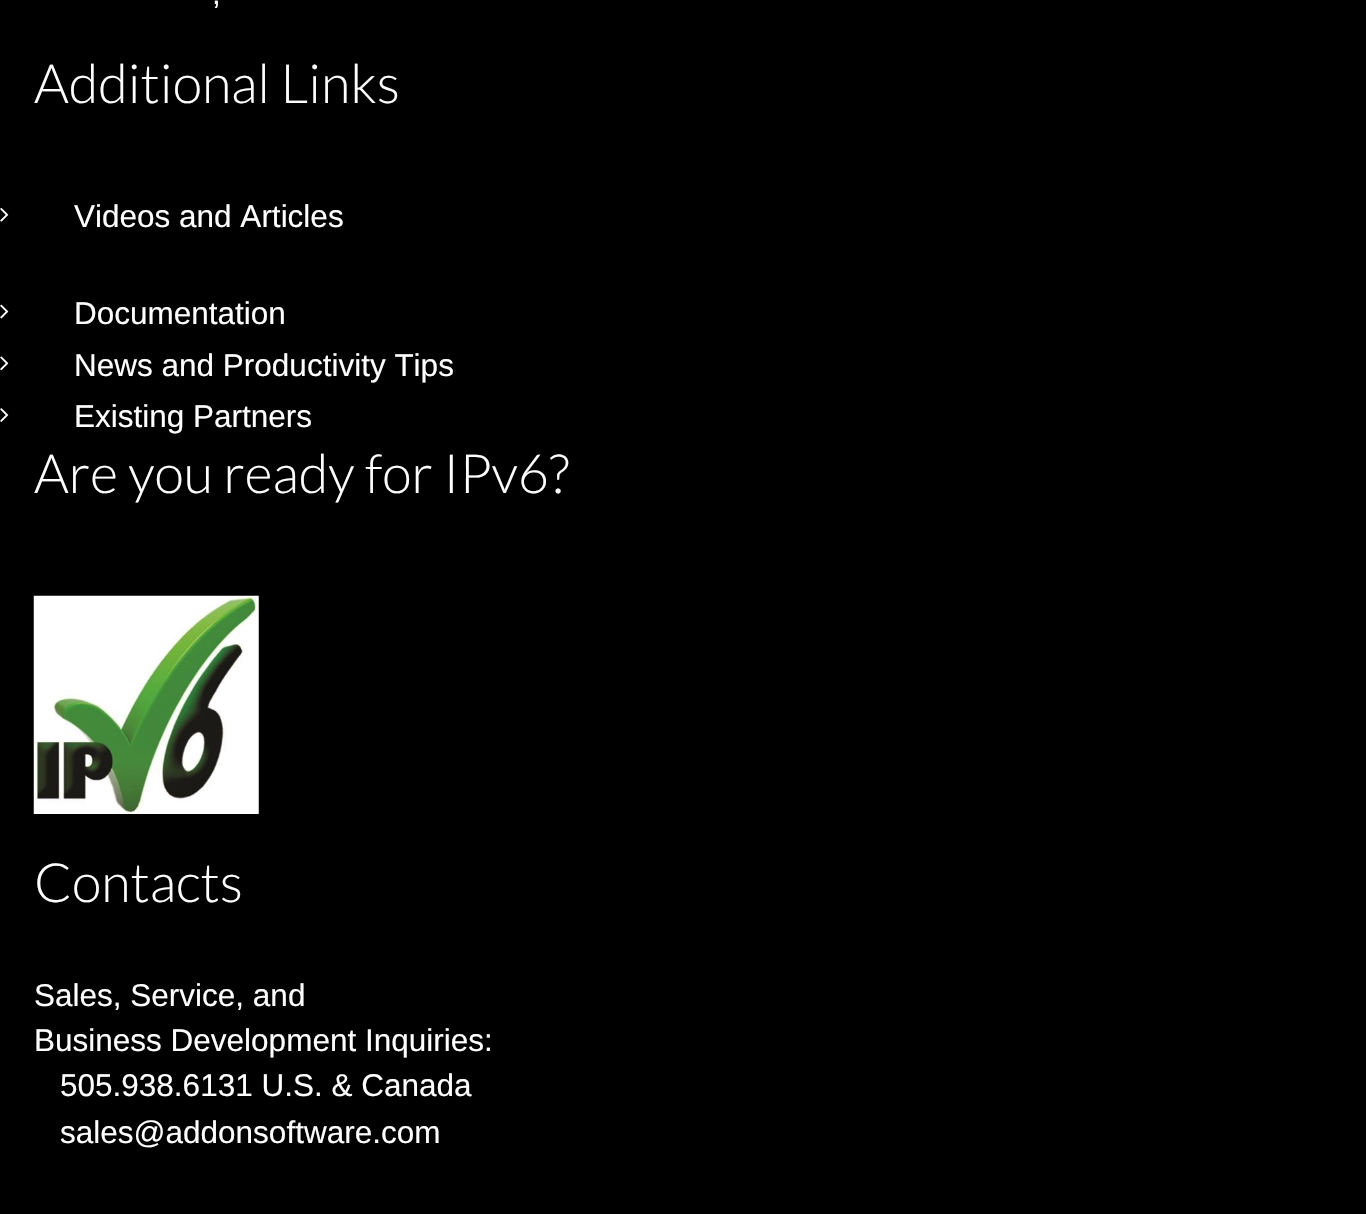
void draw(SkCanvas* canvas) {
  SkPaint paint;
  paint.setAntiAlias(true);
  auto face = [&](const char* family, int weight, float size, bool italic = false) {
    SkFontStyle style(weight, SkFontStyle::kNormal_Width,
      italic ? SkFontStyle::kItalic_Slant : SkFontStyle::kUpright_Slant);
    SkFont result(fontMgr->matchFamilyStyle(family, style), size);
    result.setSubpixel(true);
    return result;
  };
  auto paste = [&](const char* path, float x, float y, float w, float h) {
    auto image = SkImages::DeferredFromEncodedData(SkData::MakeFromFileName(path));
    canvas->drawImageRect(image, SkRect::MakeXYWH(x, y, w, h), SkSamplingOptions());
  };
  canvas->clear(0xff000000);
  paste("img/1.png", 0, 208, 9, 14);
  paste("img/2.png", 0, 304, 9, 15);
  paste("img/3.png", 0, 356, 9, 15);
  paste("img/4.png", 0, 408, 9, 14);
  paste("img/5.png", 33, 595, 226, 219);
  auto f0 = face("Liberation Sans", 400, 31.5f);
  paint.setColor(0xffffffff);
  canvas->drawString(",", 212, 4, f0, paint);
  auto f1 = face("Lato", 300, 54);
  canvas->drawString("Additional Links", 34, 103, f1, paint);
  {
    const struct { const char* s; float x, y; } items[] = {
      {"Videos and Articles", 74, 227},
      {"Documentation", 74, 324},
      {"News and Productivity Tips", 74, 376},
      {"Existing Partners", 74, 427},
    };
    for (auto [s, x, y] : items) {
      canvas->drawString(s, x, y, f0, paint);
    }
  }
  canvas->drawString("Are you ready for IPv6?", 34, 493, f1, paint);
  canvas->drawString("Contacts", 34, 902, f1, paint);
  {
    const struct { const char* s; float x, y; } items[] = {
      {"Sales, Service, and", 34, 1006},
      {"Business Development Inquiries:", 34, 1051},
      {"505.938.6131 U.S. & Canada", 60, 1096},
      {"sales@addonsoftware.com", 60, 1143},
    };
    for (auto [s, x, y] : items) {
      canvas->drawString(s, x, y, f0, paint);
    }
  }
}
